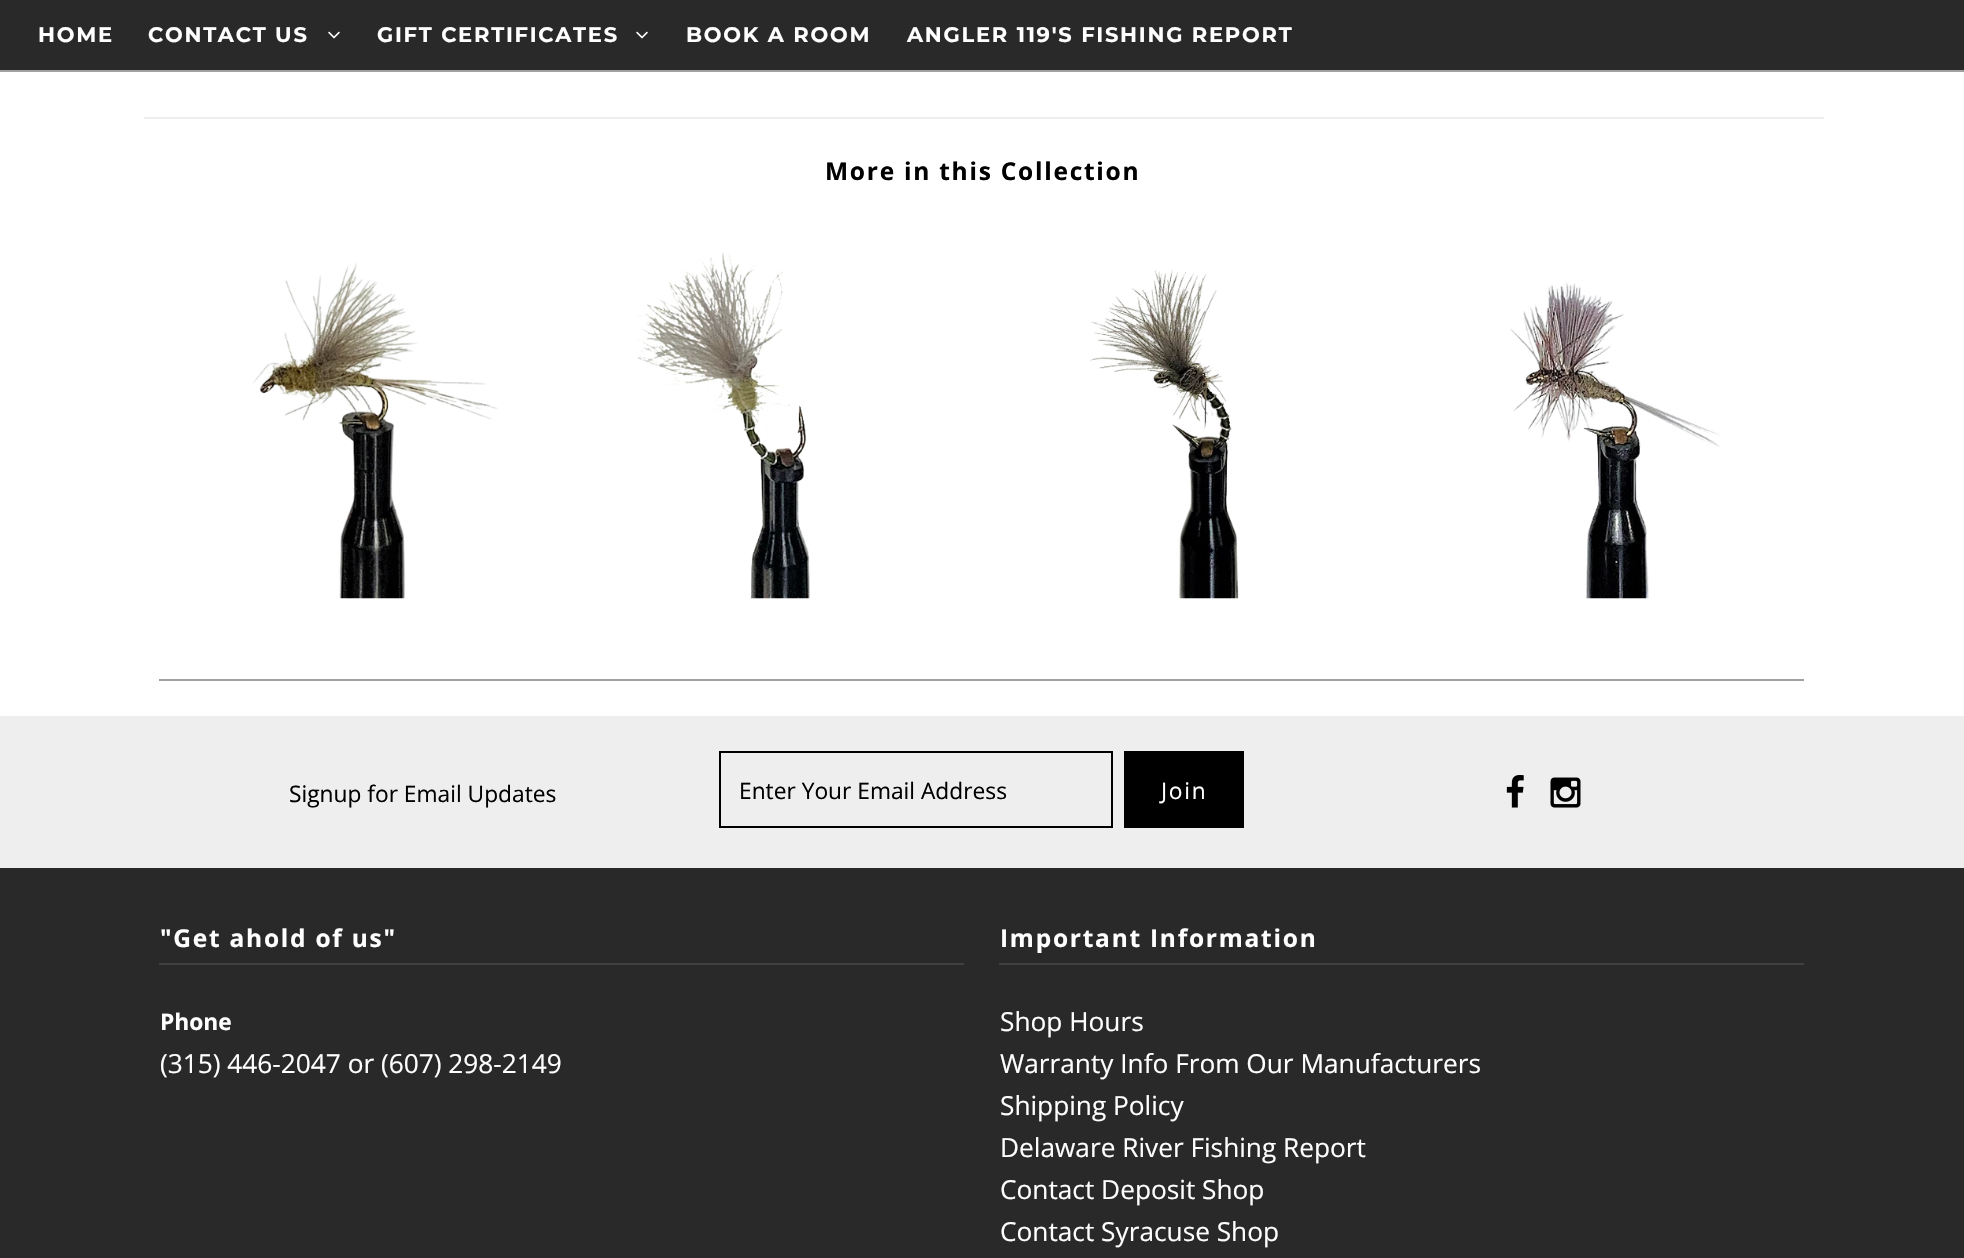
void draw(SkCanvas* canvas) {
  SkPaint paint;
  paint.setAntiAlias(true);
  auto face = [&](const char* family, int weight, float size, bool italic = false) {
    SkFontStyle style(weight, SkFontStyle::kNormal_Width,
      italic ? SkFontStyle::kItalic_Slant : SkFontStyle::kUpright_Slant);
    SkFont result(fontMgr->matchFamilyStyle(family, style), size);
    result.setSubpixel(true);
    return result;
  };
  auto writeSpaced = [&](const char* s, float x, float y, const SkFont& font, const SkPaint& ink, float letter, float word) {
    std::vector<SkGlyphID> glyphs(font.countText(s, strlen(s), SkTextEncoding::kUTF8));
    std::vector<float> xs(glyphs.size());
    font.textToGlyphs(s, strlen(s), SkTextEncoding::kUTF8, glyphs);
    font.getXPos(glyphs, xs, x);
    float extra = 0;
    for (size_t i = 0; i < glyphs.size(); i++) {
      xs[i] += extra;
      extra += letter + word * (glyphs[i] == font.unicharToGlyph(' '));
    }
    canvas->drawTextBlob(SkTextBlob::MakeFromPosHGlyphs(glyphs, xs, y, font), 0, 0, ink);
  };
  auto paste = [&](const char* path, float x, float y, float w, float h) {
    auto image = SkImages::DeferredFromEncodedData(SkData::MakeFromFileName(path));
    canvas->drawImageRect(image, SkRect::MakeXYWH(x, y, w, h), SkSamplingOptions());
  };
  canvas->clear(0xffffffff);
  paint.setColor(0xff292929);
  canvas->drawRect(SkRect::MakeXYWH(0, 0, 1964, 70), paint);
  paint.setColor(0xffa0a0a0);
  canvas->drawRect(SkRect::MakeXYWH(0, 70, 1964, 2), paint);
  paste("img/1.png", 328, 31, 12, 8);
  paste("img/1.png", 636, 31, 12, 8);
  paint.setColor(0xffeeeeee);
  canvas->drawRect(SkRect::MakeXYWH(144, 117, 1680, 2), paint);
  paste("img/2.png", 252, 262, 246, 337);
  paste("img/3.png", 637, 253, 173, 346);
  paste("img/4.png", 1090, 269, 149, 330);
  paste("img/5.png", 1510, 283, 210, 316);
  paint.setColor(0xffa0a0a0);
  canvas->drawRect(SkRect::MakeXYWH(159, 679, 1645, 2), paint);
  paint.setColor(0xffeeeeee);
  canvas->drawRect(SkRect::MakeXYWH(0, 716, 1964, 152), paint);
  paint.setStroke(true);
  paint.setStrokeWidth(2);
  paint.setColor(0xff000000);
  canvas->drawRect(SkRect::MakeXYWH(720, 752, 392, 75), paint);
  paint.setStroke(false);
  canvas->drawRect(SkRect::MakeXYWH(1124, 751, 120, 77), paint);
  paste("img/6.png", 1506, 775, 18, 33);
  paste("img/7.png", 1550, 777, 31, 31);
  {
    const struct { float x, y, w, h; SkColor color; } items[] = {
      {0, 868, 1964, 390, 0xff292929},
      {159, 963, 805, 2, 0xff414141},
      {999, 963, 805, 2, 0xff414141},
    };
    for (auto [x, y, w, h, color] : items) {
      paint.setColor(color);
      canvas->drawRect(SkRect::MakeXYWH(x, y, w, h), paint);
    }
  }
  auto f0 = face("Montserrat", 700, 21);
  paint.setColor(0xffffffff);
  {
    const struct { const char* s; float x, y; } items[] = {
      {"HOME", 38, 42},
      {"CONTACT US", 148, 42},
      {"GIFT CERTIFICATES", 377, 42},
      {"BOOK A ROOM", 686, 42},
      {"ANGLER 119'S FISHING REPORT", 907, 42},
    };
    for (auto [s, x, y] : items) {
      writeSpaced(s, x, y, f0, paint, 1.75f, 0);
    }
  }
  auto f1 = face("Open Sans", 700, 24.5f);
  paint.setColor(0xff000000);
  writeSpaced("More in this Collection", 825, 180, f1, paint, 1.75f, 0);
  auto f2 = face("Open Sans", 400, 22.75f);
  canvas->drawString("Signup for Email Updates", 289, 802, f2, paint);
  canvas->drawString("Enter Your Email Address", 739, 799, f2, paint);
  paint.setColor(0xffffffff);
  writeSpaced("Join", 1161, 799, f2, paint, 1.75f, 0);
  writeSpaced("\"Get ahold of us\"", 160, 947, f1, paint, 1.75f, 0);
  auto f3 = face("Open Sans", 700, 22.75f);
  canvas->drawString("Phone", 160, 1030, f3, paint);
  auto f4 = face("Open Sans", 400, 26.25f);
  canvas->drawString("(315) 446-2047 or (607) 298-2149", 160, 1073, f4, paint);
  writeSpaced("Important Information", 1000, 947, f1, paint, 1.75f, 0);
  {
    const struct { const char* s; float x, y; } items[] = {
      {"Shop Hours", 1000, 1031},
      {"Warranty Info From Our Manufacturers", 1000, 1073},
      {"Shipping Policy", 1000, 1115},
      {"Delaware River Fishing Report", 1000, 1157},
      {"Contact Deposit Shop", 1000, 1199},
      {"Contact Syracuse Shop", 1000, 1241},
    };
    for (auto [s, x, y] : items) {
      canvas->drawString(s, x, y, f4, paint);
    }
  }
}
